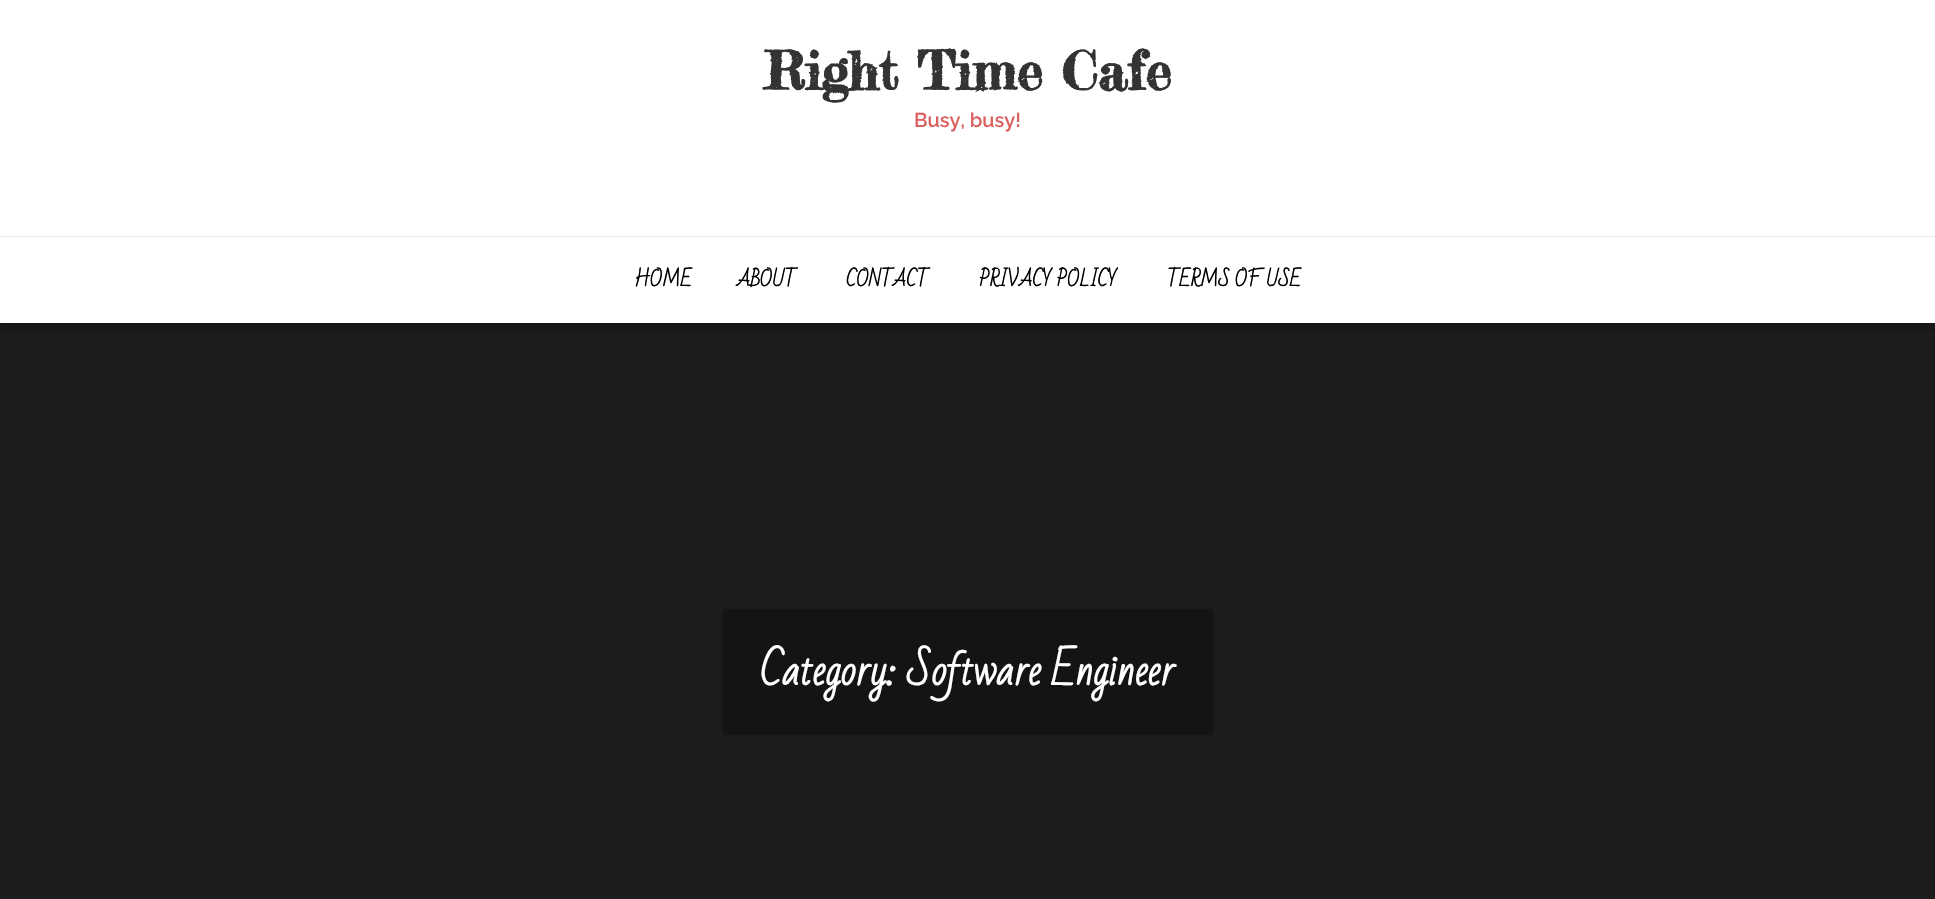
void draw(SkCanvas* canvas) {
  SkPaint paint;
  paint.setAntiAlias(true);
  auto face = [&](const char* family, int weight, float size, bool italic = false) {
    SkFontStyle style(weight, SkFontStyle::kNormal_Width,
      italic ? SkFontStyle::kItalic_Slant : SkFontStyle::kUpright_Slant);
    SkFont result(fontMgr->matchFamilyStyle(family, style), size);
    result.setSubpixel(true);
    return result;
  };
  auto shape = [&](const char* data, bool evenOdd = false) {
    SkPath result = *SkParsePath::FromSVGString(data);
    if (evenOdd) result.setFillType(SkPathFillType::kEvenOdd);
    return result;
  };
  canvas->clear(0xff1c1c1c);
  paint.setColor(0xffffffff);
  canvas->drawRect(SkRect::MakeXYWH(0, 0, 1935, 323), paint);
  canvas->save();
  canvas->clipPath(shape("M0 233H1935V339H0ZM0 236H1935V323H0Z", true), true);
  paint.setColor(0x33000000);
  paint.setMaskFilter(SkMaskFilter::MakeBlur(kNormal_SkBlurStyle, 3));
  canvas->drawRect(SkRect::MakeXYWH(0, 243, 1935, 86), paint);
  paint.setMaskFilter(nullptr);
  canvas->restore();
  paint.setColor(0xffe9e9e9);
  canvas->drawRect(SkRect::MakeXYWH(0, 236, 1935, 1), paint);
  paint.setColor(0xff141414);
  canvas->drawRect(SkRect::MakeXYWH(723, 609, 490, 126), paint);
  auto f0 = face("Fredericka the Great", 700, 52.5f);
  paint.setColor(0xff333333);
  canvas->drawString("Right Time Cafe", 764, 90, f0, paint);
  auto f1 = face("Raleway", 600, 20);
  paint.setColor(0xffdb6060);
  canvas->drawString("Busy, busy!", 914, 127, f1, paint);
  auto f2 = face("Bad Script", 700, 18.75f);
  paint.setColor(0xff000000);
  {
    const struct { const char* s; float x, y; } items[] = {
      {"HOME", 634, 286},
      {"ABOUT", 737, 286},
      {"CONTACT", 846, 286},
      {"PRIVACY POLICY", 979, 286},
      {"TERMS OF USE", 1167, 286},
    };
    for (auto [s, x, y] : items) {
      canvas->drawString(s, x, y, f2, paint);
    }
  }
  auto f3 = face("Bad Script", 700, 40);
  paint.setColor(0xffffffff);
  canvas->drawString("Category: Software Engineer", 760, 685, f3, paint);
}
